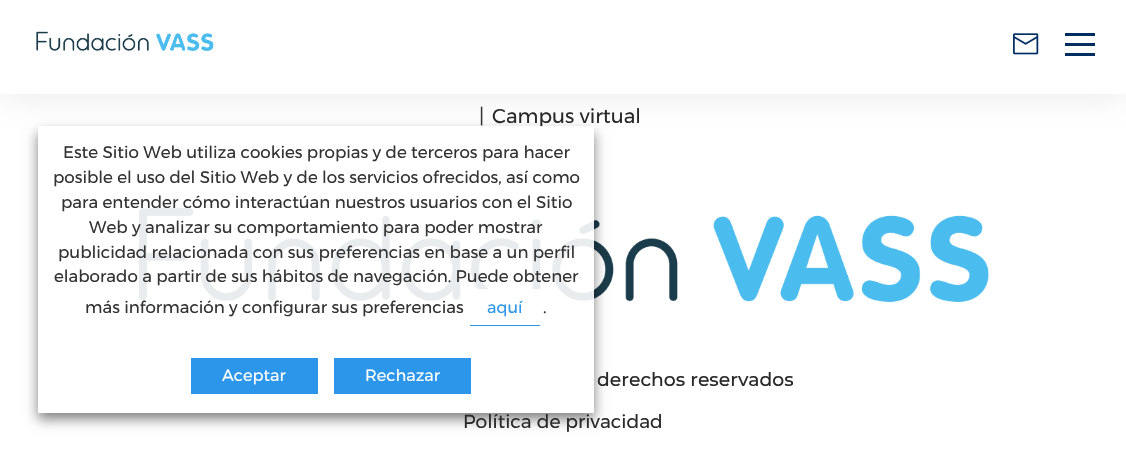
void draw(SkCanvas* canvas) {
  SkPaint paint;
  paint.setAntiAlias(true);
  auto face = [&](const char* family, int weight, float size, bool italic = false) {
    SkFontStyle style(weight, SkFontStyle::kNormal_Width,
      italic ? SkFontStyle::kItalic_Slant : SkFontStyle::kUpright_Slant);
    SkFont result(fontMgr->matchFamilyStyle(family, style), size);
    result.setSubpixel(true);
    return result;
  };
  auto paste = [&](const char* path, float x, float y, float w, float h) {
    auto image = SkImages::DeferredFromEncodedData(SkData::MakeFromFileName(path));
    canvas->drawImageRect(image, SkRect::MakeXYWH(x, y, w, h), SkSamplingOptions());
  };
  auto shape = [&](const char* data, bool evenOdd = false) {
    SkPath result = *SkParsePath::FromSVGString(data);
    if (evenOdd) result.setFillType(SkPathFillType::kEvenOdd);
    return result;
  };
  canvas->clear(0xffffffff);
  paint.setColor(0x40a7a7a7);
  paint.setMaskFilter(SkMaskFilter::MakeBlur(kNormal_SkBlurStyle, 17.5f));
  canvas->drawRect(SkRect::MakeXYWH(0, 3, 1126, 93), paint);
  paint.setMaskFilter(nullptr);
  paint.setColor(0xffffffff);
  canvas->drawRect(SkRect::MakeXYWH(0, 0, 1126, 94), paint);
  paste("img/1.png", 36, 31, 178, 20);
  paste("img/2.png", 1013, 33, 26, 22);
  {
    const struct { float x, y, w, h; SkColor color; } items[] = {
      {1065, 33, 30, 3, 0xff002d62},
      {1065, 43, 30, 3, 0xff002d62},
      {1065, 53, 30, 3, 0xff002d62},
    };
    for (auto [x, y, w, h, color] : items) {
      paint.setColor(color);
      canvas->drawRect(SkRect::MakeXYWH(x, y, w, h), paint);
    }
  }
  paste("img/3.png", 138, 207, 851, 96);
  canvas->save();
  canvas->clipPath(shape("M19 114H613V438H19ZM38 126H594V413H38Z", true), true);
  paint.setColor(0x80000000);
  paint.setMaskFilter(SkMaskFilter::MakeBlur(kNormal_SkBlurStyle, 6));
  canvas->drawRect(SkRect::MakeXYWH(38, 133, 556, 286), paint);
  paint.setMaskFilter(nullptr);
  canvas->restore();
  auto f0 = face("Montserrat", 400, 20);
  paint.setColor(0xff333333);
  canvas->drawString("|", 479, 123, f0, paint);
  paint.setColor(0xff2a2a2a);
  canvas->drawString("Campus virtual", 492, 123, f0, paint);
  paint.setColor(0xe6ffffff);
  canvas->drawRect(SkRect::MakeXYWH(38, 126, 556, 287), paint);
  paint.setColor(0xff2b96ea);
  canvas->drawRect(SkRect::MakeXYWH(334, 358, 137, 36), paint);
  auto f1 = face("Montserrat", 400, 16.25f);
  paint.setColor(0xffffffff);
  canvas->drawString("Rechazar", 365, 381, f1, paint);
  paint.setColor(0xff2b96ea);
  canvas->drawRect(SkRect::MakeXYWH(191, 358, 127, 36), paint);
  paint.setColor(0xffffffff);
  canvas->drawString("Aceptar", 222, 381, f1, paint);
  canvas->drawRoundRect(SkRect::MakeXYWH(468, 289, 75, 37), 5, 5, paint);
  paint.setColor(0xff2b96ea);
  canvas->drawString("aquí", 487, 313, f1, paint);
  canvas->drawRect(SkRect::MakeXYWH(470, 325, 70, 1), paint);
  auto f2 = face("Montserrat", 400, 16.7f);
  paint.setColor(0xff333333);
  {
    const struct { const char* s; float x, y; } items[] = {
      {".", 543, 313},
      {"más información y configurar sus preferencias", 85, 313},
      {"elaborado a partir de sus hábitos de navegación. Puede obtener", 54, 282},
      {"publicidad relacionada con sus preferencias en base a un perfil", 58, 258},
      {"Web y analizar su comportamiento para poder mostrar", 89, 233},
      {"para entender cómo interactúan nuestros usuarios con el Sitio", 61, 208},
      {"posible el uso del Sitio Web y de los servicios ofrecidos, así como", 53, 183},
      {"Este Sitio Web utiliza cookies propias y de terceros para hacer", 63, 158},
    };
    for (auto [s, x, y] : items) {
      canvas->drawString(s, x, y, f2, paint);
    }
  }
  auto f3 = face("Montserrat", 500, 18.75f);
  paint.setColor(0xff2a2a2a);
  canvas->drawString("derechos reservados", 597, 386, f3, paint);
  auto f4 = face("Montserrat", 400, 18.75f);
  canvas->drawString("Política de privacidad", 463, 428, f4, paint);
}
